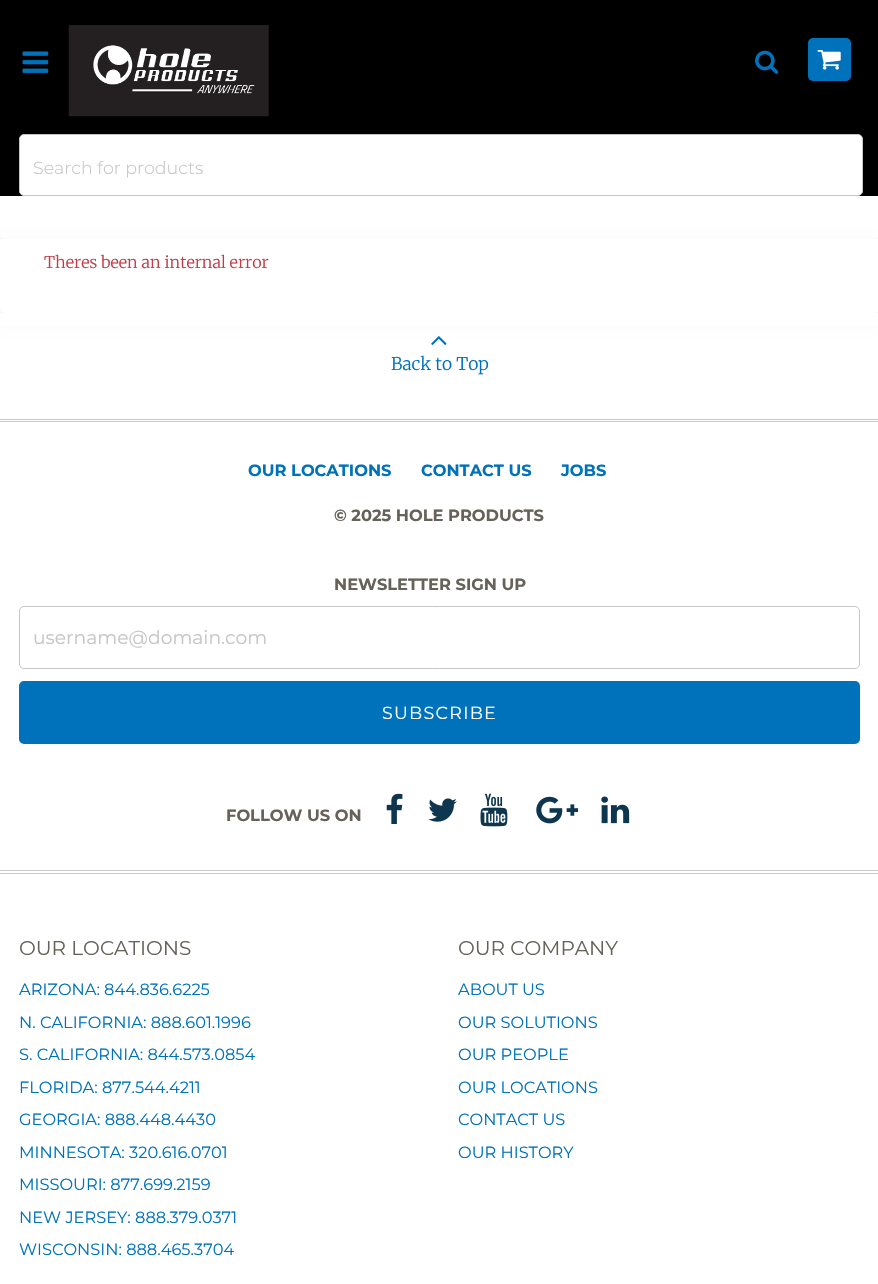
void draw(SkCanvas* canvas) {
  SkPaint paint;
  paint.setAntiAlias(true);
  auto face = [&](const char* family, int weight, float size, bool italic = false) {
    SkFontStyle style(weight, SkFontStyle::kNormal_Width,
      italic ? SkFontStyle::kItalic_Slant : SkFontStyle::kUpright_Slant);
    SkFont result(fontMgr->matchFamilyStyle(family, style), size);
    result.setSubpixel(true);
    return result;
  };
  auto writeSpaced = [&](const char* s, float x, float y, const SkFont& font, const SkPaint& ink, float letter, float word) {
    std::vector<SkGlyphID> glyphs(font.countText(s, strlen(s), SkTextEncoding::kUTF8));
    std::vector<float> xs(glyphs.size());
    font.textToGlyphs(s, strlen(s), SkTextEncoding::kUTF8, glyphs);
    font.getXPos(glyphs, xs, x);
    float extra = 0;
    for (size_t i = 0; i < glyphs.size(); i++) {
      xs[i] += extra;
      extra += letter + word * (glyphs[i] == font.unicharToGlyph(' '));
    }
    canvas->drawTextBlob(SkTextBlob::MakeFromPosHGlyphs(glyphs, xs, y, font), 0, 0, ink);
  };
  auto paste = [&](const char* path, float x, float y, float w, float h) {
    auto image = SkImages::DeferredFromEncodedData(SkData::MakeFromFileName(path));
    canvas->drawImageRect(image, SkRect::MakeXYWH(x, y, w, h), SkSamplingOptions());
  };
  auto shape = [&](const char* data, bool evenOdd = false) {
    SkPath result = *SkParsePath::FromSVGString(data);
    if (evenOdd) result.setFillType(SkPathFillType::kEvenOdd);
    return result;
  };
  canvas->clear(0xffffffff);
  paint.setColor(0xff000000);
  canvas->drawRect(SkRect::MakeXYWH(0, 0, 878, 196), paint);
  paste("img/1.png", 22, 51, 27, 22);
  paste("img/2.png", 68, 25, 201, 92);
  paste("img/3.png", 755, 50, 24, 24);
  paint.setColor(0xff0072bc);
  canvas->drawRoundRect(SkRect::MakeXYWH(808, 38, 43, 43), 5, 5, paint);
  paste("img/4.png", 817, 50, 24, 20);
  paint.setColor(0x0d000000);
  paint.setMaskFilter(SkMaskFilter::MakeBlur(kNormal_SkBlurStyle, 7.5f));
  canvas->drawRoundRect(SkRect::MakeXYWH(0, 204, 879, 42), 5, 5, paint);
  paint.setMaskFilter(nullptr);
  paint.setColor(0xffffffff);
  canvas->drawRoundRect(SkRect::MakeXYWH(19.5f, 134.5f, 843, 61), 4.5f, 4.5f, paint);
  paint.setStroke(true);
  paint.setStrokeWidth(1);
  paint.setColor(0xffc6c6c6);
  canvas->drawRoundRect(SkRect::MakeXYWH(19.5f, 134.5f, 843, 61), 4.5f, 4.5f, paint);
  paint.setStroke(false);
  paint.setColor(0xffffffff);
  canvas->drawPath(shape("M0 196H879V234C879 237 877 239 874 239H5C2 239 0 237 0 234Z"), paint);
  paint.setColor(0x0d000000);
  paint.setMaskFilter(SkMaskFilter::MakeBlur(kNormal_SkBlurStyle, 7.5f));
  canvas->drawRoundRect(SkRect::MakeXYWH(0, 246, 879, 74), 5, 5, paint);
  paint.setMaskFilter(nullptr);
  paint.setColor(0xffffffff);
  canvas->drawPath(shape("M0 239H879V308C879 311 877 313 874 313H5C2 313 0 311 0 308Z"), paint);
  canvas->drawRect(SkRect::MakeXYWH(0, 313, 878, 13), paint);
  paste("img/5.png", 431, 336, 16, 9);
  paint.setColor(0xffc9c8c7);
  canvas->drawRect(SkRect::MakeXYWH(0, 419, 878, 1), paint);
  canvas->drawRect(SkRect::MakeXYWH(0, 421, 878, 1), paint);
  paint.setStroke(true);
  paint.setColor(0xffc6c6c6);
  canvas->drawRoundRect(SkRect::MakeXYWH(19.5f, 606.5f, 840, 62), 4.5f, 4.5f, paint);
  paint.setStroke(false);
  paint.setColor(0xff0072bc);
  canvas->drawRoundRect(SkRect::MakeXYWH(20.5f, 682.5f, 838, 60), 3.5f, 3.5f, paint);
  paint.setStroke(true);
  paint.setStrokeWidth(3);
  canvas->drawRoundRect(SkRect::MakeXYWH(20.5f, 682.5f, 838, 60), 3.5f, 3.5f, paint);
  paste("img/6.png", 386, 793, 17, 31);
  paste("img/7.png", 428, 798, 29, 24);
  paste("img/8.png", 480, 793, 28, 34);
  paste("img/9.png", 536, 796, 43, 28);
  paste("img/10.png", 601, 796, 29, 28);
  paint.setStroke(false);
  paint.setColor(0xffc9c8c7);
  canvas->drawRect(SkRect::MakeXYWH(0, 870, 878, 1), paint);
  canvas->drawRect(SkRect::MakeXYWH(0, 873, 878, 1), paint);
  auto f0 = face("Montserrat", 300, 17.5f);
  paint.setColor(0xffc6c6c6);
  canvas->drawString("Search for products", 33, 174, f0, paint);
  auto f1 = face("Merriweather", 300, 16.25f);
  paint.setColor(0xffc33c48);
  canvas->drawString("Theres been an internal error", 44, 268, f1, paint);
  auto f2 = face("Merriweather", 300, 17.5f);
  paint.setColor(0xff0072bc);
  canvas->drawString("Back to Top", 391, 370, f2, paint);
  auto f3 = face("Montserrat", 700, 16.25f);
  {
    const struct { const char* s; float x, y; } items[] = {
      {"OUR LOCATIONS", 248, 476},
      {"CONTACT US", 421, 476},
      {"JOBS", 561, 476},
    };
    for (auto [s, x, y] : items) {
      canvas->drawString(s, x, y, f3, paint);
    }
  }
  paint.setColor(0xff66625a);
  canvas->drawString("© 2025 HOLE PRODUCTS", 334, 521, f3, paint);
  canvas->drawString("NEWSLETTER SIGN UP", 334, 590, f3, paint);
  auto f4 = face("Montserrat", 400, 18.75f);
  paint.setColor(0xffc6c6c6);
  canvas->drawString("username@domain.com", 33, 644, f4, paint);
  auto f5 = face("Montserrat", 400, 17.5f);
  paint.setColor(0xffffffff);
  writeSpaced("SUBSCRIBE", 382, 719, f5, paint, 1.25f, 0);
  paint.setColor(0xff66625a);
  canvas->drawString("FOLLOW US ON", 226, 821, f3, paint);
  auto f6 = face("Montserrat", 400, 20);
  canvas->drawString("OUR LOCATIONS", 19, 955, f6, paint);
  auto f7 = face("Montserrat", 400, 16.25f);
  paint.setColor(0xff0072bc);
  {
    const struct { const char* s; float x, y; } items[] = {
      {"ARIZONA: 844.836.6225", 19, 995},
      {"N. CALIFORNIA: 888.601.1996", 19, 1028},
      {"S. CALIFORNIA: 844.573.0854", 19, 1060},
      {"FLORIDA: 877.544.4211", 19, 1093},
      {"GEORGIA: 888.448.4430", 19, 1125},
      {"MINNESOTA: 320.616.0701", 19, 1158},
      {"MISSOURI: 877.699.2159", 19, 1190},
      {"NEW JERSEY: 888.379.0371", 19, 1223},
      {"WISCONSIN: 888.465.3704", 19, 1255},
    };
    for (auto [s, x, y] : items) {
      canvas->drawString(s, x, y, f7, paint);
    }
  }
  paint.setColor(0xff66625a);
  canvas->drawString("OUR COMPANY", 458, 955, f6, paint);
  paint.setColor(0xff0072bc);
  {
    const struct { const char* s; float x, y; } items[] = {
      {"ABOUT US", 458, 995},
      {"OUR SOLUTIONS", 458, 1028},
      {"OUR PEOPLE", 458, 1060},
      {"OUR LOCATIONS", 458, 1093},
      {"CONTACT US", 458, 1125},
      {"OUR HISTORY", 458, 1158},
    };
    for (auto [s, x, y] : items) {
      canvas->drawString(s, x, y, f7, paint);
    }
  }
}
